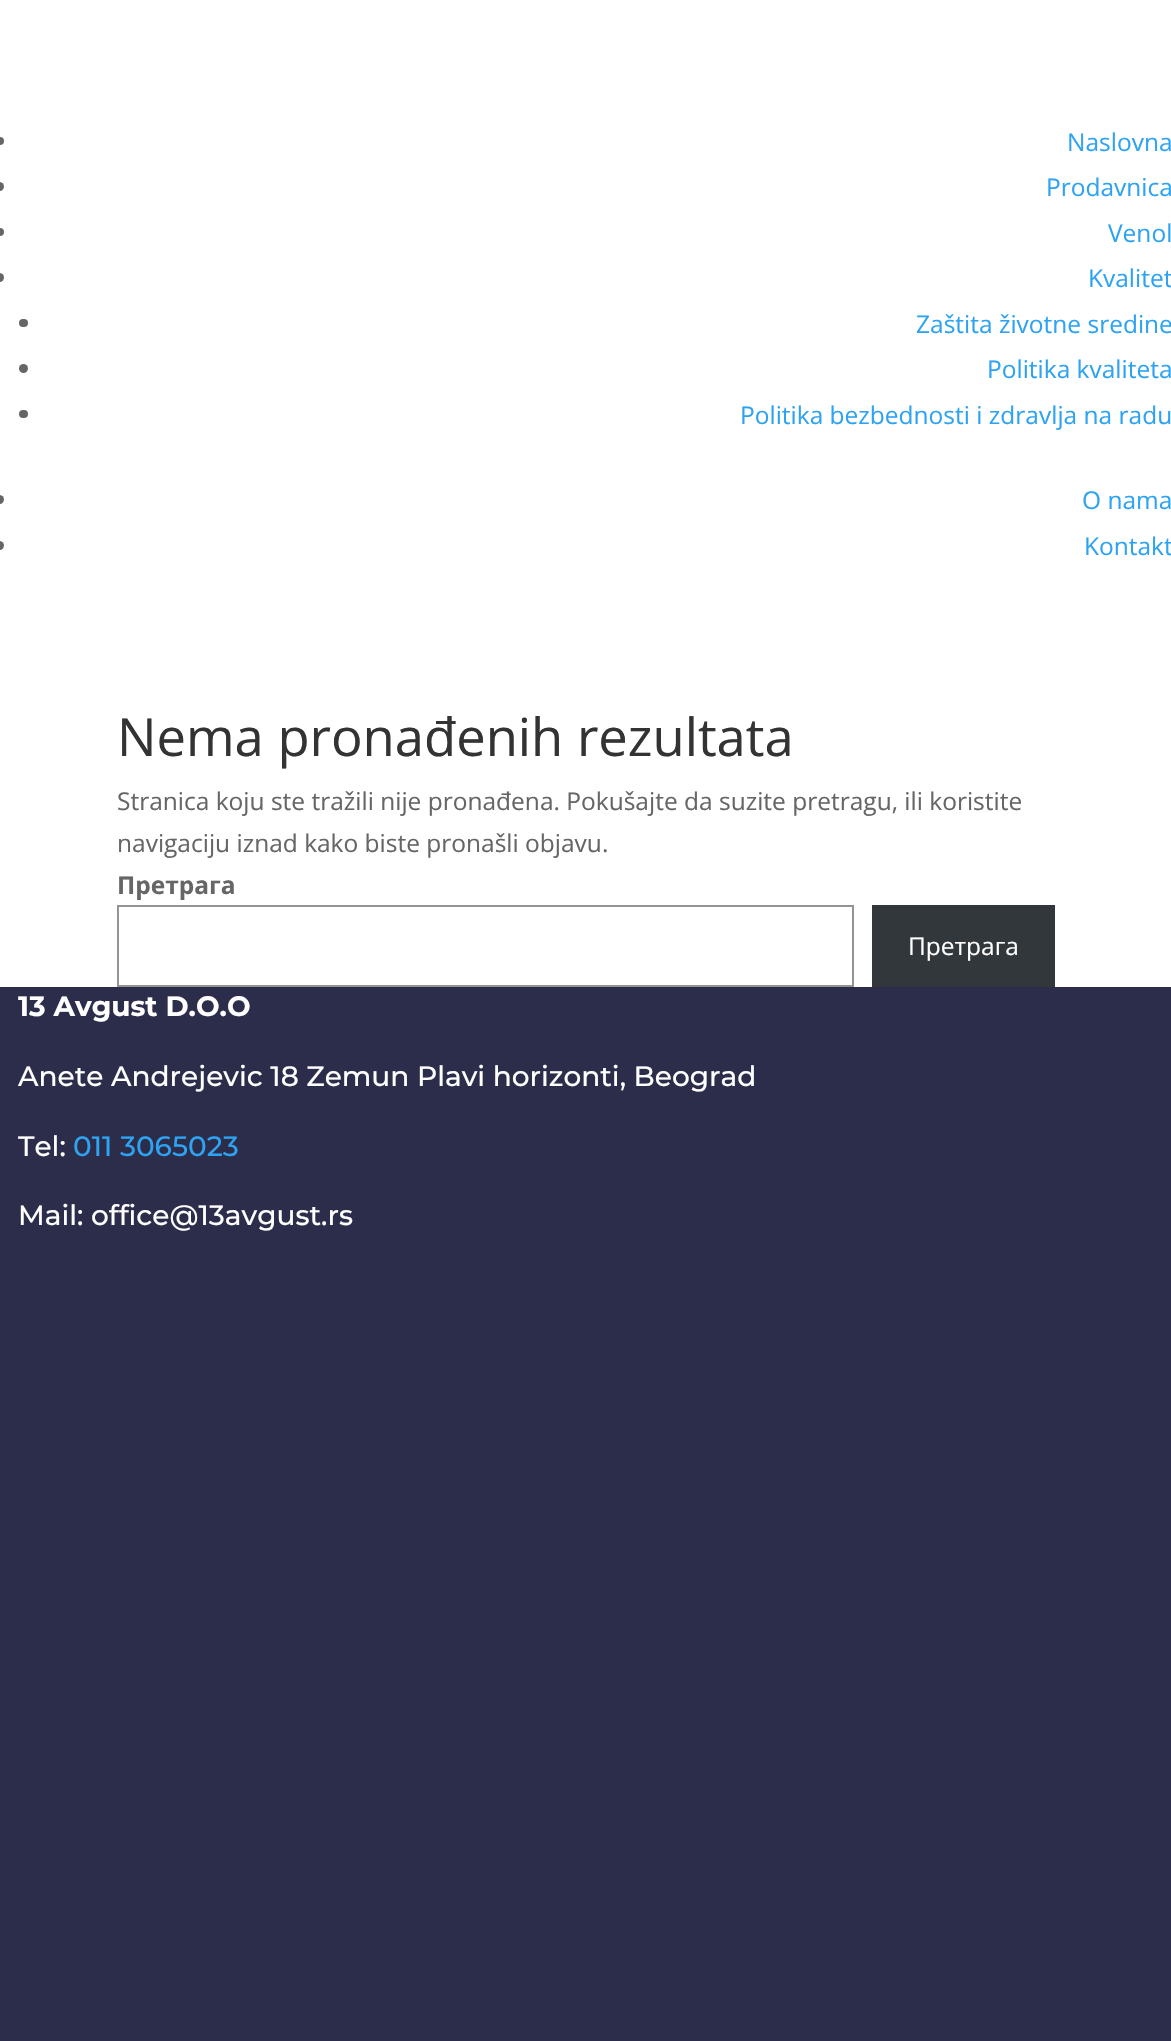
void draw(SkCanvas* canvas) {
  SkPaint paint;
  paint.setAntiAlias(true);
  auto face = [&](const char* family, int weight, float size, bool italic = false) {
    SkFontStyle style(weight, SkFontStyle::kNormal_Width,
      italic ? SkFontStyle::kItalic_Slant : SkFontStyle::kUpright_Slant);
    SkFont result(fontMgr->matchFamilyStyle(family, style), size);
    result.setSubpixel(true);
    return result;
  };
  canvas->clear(0xffffffff);
  paint.setColor(0xff666666);
  canvas->drawCircle(0, 141, 4, paint);
  canvas->drawCircle(-0.5f, 186.5f, 4.5f, paint);
  canvas->drawCircle(0, 232, 4, paint);
  canvas->drawCircle(-0.5f, 277.5f, 4.5f, paint);
  canvas->drawRoundRect(SkRect::MakeXYWH(19, 319, 9, 8), 4, 4, paint);
  canvas->drawCircle(23.5f, 368.5f, 4.5f, paint);
  canvas->drawRoundRect(SkRect::MakeXYWH(19, 410, 9, 8), 4, 4, paint);
  canvas->drawCircle(-0.5f, 499.5f, 4.5f, paint);
  canvas->drawCircle(-0.5f, 545.5f, 4.5f, paint);
  paint.setStroke(true);
  paint.setStrokeWidth(2);
  paint.setColor(0xff949494);
  canvas->drawRect(SkRect::MakeXYWH(118, 906, 735, 80), paint);
  paint.setStroke(false);
  paint.setColor(0xff32373c);
  canvas->drawRect(SkRect::MakeXYWH(872, 905, 183, 82), paint);
  paint.setColor(0xff2c2d4b);
  canvas->drawRect(SkRect::MakeXYWH(0, 987, 1171, 1054), paint);
  auto f0 = face("Open Sans", 400, 24.5f);
  paint.setColor(0xff2ea3f2);
  {
    const struct { const char* s; float x, y; } items[] = {
      {"Naslovna", 1067, 151},
      {"Prodavnica", 1046, 196},
      {"Venol", 1108, 242},
      {"Kvalitet", 1088, 287},
      {"Zaštita životne sredine", 916, 333},
      {"Politika kvaliteta", 987, 378},
      {"Politika bezbednosti i zdravlja na radu", 740, 424},
      {"O nama", 1082, 509},
      {"Kontakt", 1084, 555},
    };
    for (auto [s, x, y] : items) {
      canvas->drawString(s, x, y, f0, paint);
    }
  }
  auto f1 = face("Open Sans", 400, 52.5f);
  paint.setColor(0xff333333);
  canvas->drawString("Nema pronađenih rezultata", 117, 756, f1, paint);
  paint.setColor(0xff666666);
  canvas->drawString("Stranica koju ste tražili nije pronađena. Pokušajte da suzite pretragu, ili koristite", 117, 810, f0, paint);
  canvas->drawString("navigaciju iznad kako biste pronašli objavu.", 117, 852, f0, paint);
  auto f2 = face("Open Sans", 700, 24.5f);
  canvas->drawString("Претрага", 117, 894, f2, paint);
  paint.setColor(0xffffffff);
  canvas->drawString("Претрага", 908, 955, f0, paint);
  auto f3 = face("Montserrat", 700, 28);
  canvas->drawString("13 Avgust D.O.O", 18, 1016, f3, paint);
  auto f4 = face("Montserrat", 500, 28);
  canvas->drawString("Anete Andrejevic 18 Zemun Plavi horizonti, Beograd", 18, 1086, f4, paint);
  canvas->drawString("Tel:", 18, 1156, f4, paint);
  paint.setColor(0xff2ea3f2);
  canvas->drawString("011 3065023", 73, 1156, f4, paint);
  paint.setColor(0xffffffff);
  canvas->drawString("Mail: office@13avgust.rs", 18, 1225, f4, paint);
}
